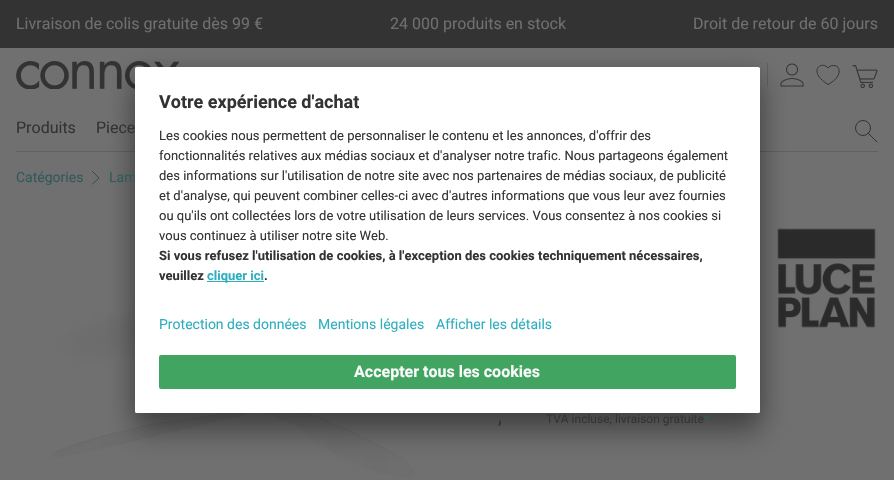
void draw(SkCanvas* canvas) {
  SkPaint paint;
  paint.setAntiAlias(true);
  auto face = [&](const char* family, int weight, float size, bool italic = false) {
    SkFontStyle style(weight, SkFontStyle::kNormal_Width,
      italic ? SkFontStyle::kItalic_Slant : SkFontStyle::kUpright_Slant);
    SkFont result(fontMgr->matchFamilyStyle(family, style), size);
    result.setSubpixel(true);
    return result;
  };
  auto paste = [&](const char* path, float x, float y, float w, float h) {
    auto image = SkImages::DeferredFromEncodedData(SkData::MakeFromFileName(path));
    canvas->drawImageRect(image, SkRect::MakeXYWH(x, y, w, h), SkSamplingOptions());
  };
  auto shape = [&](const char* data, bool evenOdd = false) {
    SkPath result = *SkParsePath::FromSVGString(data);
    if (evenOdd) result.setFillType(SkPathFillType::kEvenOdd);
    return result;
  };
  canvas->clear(0xff707070);
  paint.setColor(0xff333333);
  canvas->drawRect(SkRect::MakeXYWH(0, 0, 894, 48), paint);
  paste("img/1.png", 16, 61, 164, 28);
  paint.setColor(0xff60605f);
  canvas->drawRect(SkRect::MakeXYWH(767, 63, 1, 24), paint);
  paste("img/2.png", 780, 63, 24, 24);
  paint.setStroke(true);
  paint.setStrokeWidth(1);
  paint.setColor(0xff333333);
  canvas->drawPath(shape("M833.5 65.5C831 65.5 829 66.5 828 68C822 60 806.5 71 828 84.5C832 82.5 836 79.5 838 75.5C840.5 71 839 65.5 833.5 65.5Z"), paint);
  paste("img/3.png", 852, 65, 26, 24);
  paint.setStroke(false);
  paint.setColor(0xff60605f);
  canvas->drawRect(SkRect::MakeXYWH(16, 151, 862, 1), paint);
  paint.setStroke(true);
  paint.setColor(0xff333333);
  canvas->drawCircle(863, 128, 7.5f, paint);
  paint.setStrokeCap(SkPaint::kRound_Cap);
  canvas->drawPath(shape("M877 142L868 133"), paint);
  paint.setStrokeWidth(0.7f);
  canvas->drawPath(shape("M92.5 184L99 178L92.5 171.5"), paint);
  paste("img/4.png", 51, 283, 364, 195);
  paste("img/5.png", 777, 228, 99, 100);
  paint.setStroke(false);
  paint.setColor(0x4d000000);
  paint.setMaskFilter(SkMaskFilter::MakeBlur(kNormal_SkBlurStyle, 14));
  canvas->drawRoundRect(SkRect::MakeXYWH(135, 87, 625, 346), 2, 2, paint);
  paint.setMaskFilter(nullptr);
  paint.setColor(0x38000000);
  paint.setMaskFilter(SkMaskFilter::MakeBlur(kNormal_SkBlurStyle, 13));
  canvas->drawRoundRect(SkRect::MakeXYWH(135, 72, 625, 346), 2, 2, paint);
  paint.setMaskFilter(nullptr);
  auto f0 = face("Roboto", 400, 16);
  paint.setColor(0xff6f6f6f);
  {
    const struct { const char* s; float x, y; } items[] = {
      {"Livraison de colis gratuite dès 99 €", 16, 29},
      {"24 000 produits en stock", 390, 29},
      {"Droit de retour de 60 jours", 693, 29},
    };
    for (auto [s, x, y] : items) {
      canvas->drawString(s, x, y, f0, paint);
    }
  }
  paint.setColor(0xff333333);
  canvas->drawString("Produits", 16, 133, f0, paint);
  canvas->drawString("Piece", 96, 133, f0, paint);
  auto f1 = face("Roboto", 400, 14);
  paint.setColor(0xff32585d);
  canvas->drawString("Catégories", 16, 182, f1, paint);
  canvas->drawString("Lam", 109, 182, f1, paint);
  auto f2 = face("Roboto", 400, 20);
  paint.setColor(0xff333333);
  canvas->drawString(",", 498, 423, f2, paint);
  auto f3 = face("Roboto", 400, 12);
  canvas->drawString("TVA incluse,", 546, 423, f3, paint);
  canvas->drawString("livraison gratuite", 615, 423, f3, paint);
  paint.setColor(0xff32585d);
  canvas->drawString("*", 704, 423, f3, paint);
  paint.setColor(0xffffffff);
  canvas->drawRoundRect(SkRect::MakeXYWH(135, 67, 625, 346), 2, 2, paint);
  canvas->drawRect(SkRect::MakeXYWH(135, 68, 625, 1), paint);
  auto f4 = face("Roboto", 700, 18);
  paint.setColor(0xff333333);
  canvas->drawString("Votre expérience d'achat", 159, 108, f4, paint);
  auto f5 = face("Roboto", 400, 13);
  {
    const struct { const char* s; float x, y; } items[] = {
      {"Les cookies nous permettent de personnaliser le contenu et les annonces, d'offrir des", 159, 140},
      {"fonctionnalités relatives aux médias sociaux et d'analyser notre trafic. Nous partageons également", 159, 160},
      {"des informations sur l'utilisation de notre site avec nos partenaires de médias sociaux, de publicité", 159, 180},
      {"et d'analyse, qui peuvent combiner celles-ci avec d'autres informations que vous leur avez fournies", 159, 200},
      {"ou qu'ils ont collectées lors de votre utilisation de leurs services. Vous consentez à nos cookies si", 159, 220},
      {"vous continuez à utiliser notre site Web.", 159, 240},
    };
    for (auto [s, x, y] : items) {
      canvas->drawString(s, x, y, f5, paint);
    }
  }
  auto f6 = face("Roboto", 700, 13);
  {
    const struct { const char* s; float x, y; } items[] = {
      {"Si vous refusez l'utilisation de cookies, à l'exception des cookies techniquement nécessaires,", 159, 260},
      {"veuillez", 159, 280},
      {".", 264, 280},
    };
    for (auto [s, x, y] : items) {
      canvas->drawString(s, x, y, f6, paint);
    }
  }
  paint.setColor(0xff2faebe);
  canvas->drawRect(SkRect::MakeXYWH(207, 281, 57, 1), paint);
  canvas->drawString("cliquer ici", 207, 280, f6, paint);
  {
    const struct { const char* s; float x, y; } items[] = {
      {"Protection des données", 159, 329},
      {"Mentions légales", 318, 329},
      {"Afficher les détails", 436, 329},
    };
    for (auto [s, x, y] : items) {
      canvas->drawString(s, x, y, f1, paint);
    }
  }
  paint.setColor(0xffffffff);
  canvas->drawPath(shape("M135 347H760V411C760 412 759 413 758 413H137C136 413 135 412 135 411Z"), paint);
  paint.setColor(0xff41a561);
  canvas->drawRoundRect(SkRect::MakeXYWH(159, 355, 577, 34), 2, 2, paint);
  auto f7 = face("Roboto", 700, 16);
  paint.setColor(0xfffafafa);
  canvas->drawString("Accepter tous les cookies", 354, 377, f7, paint);
}
